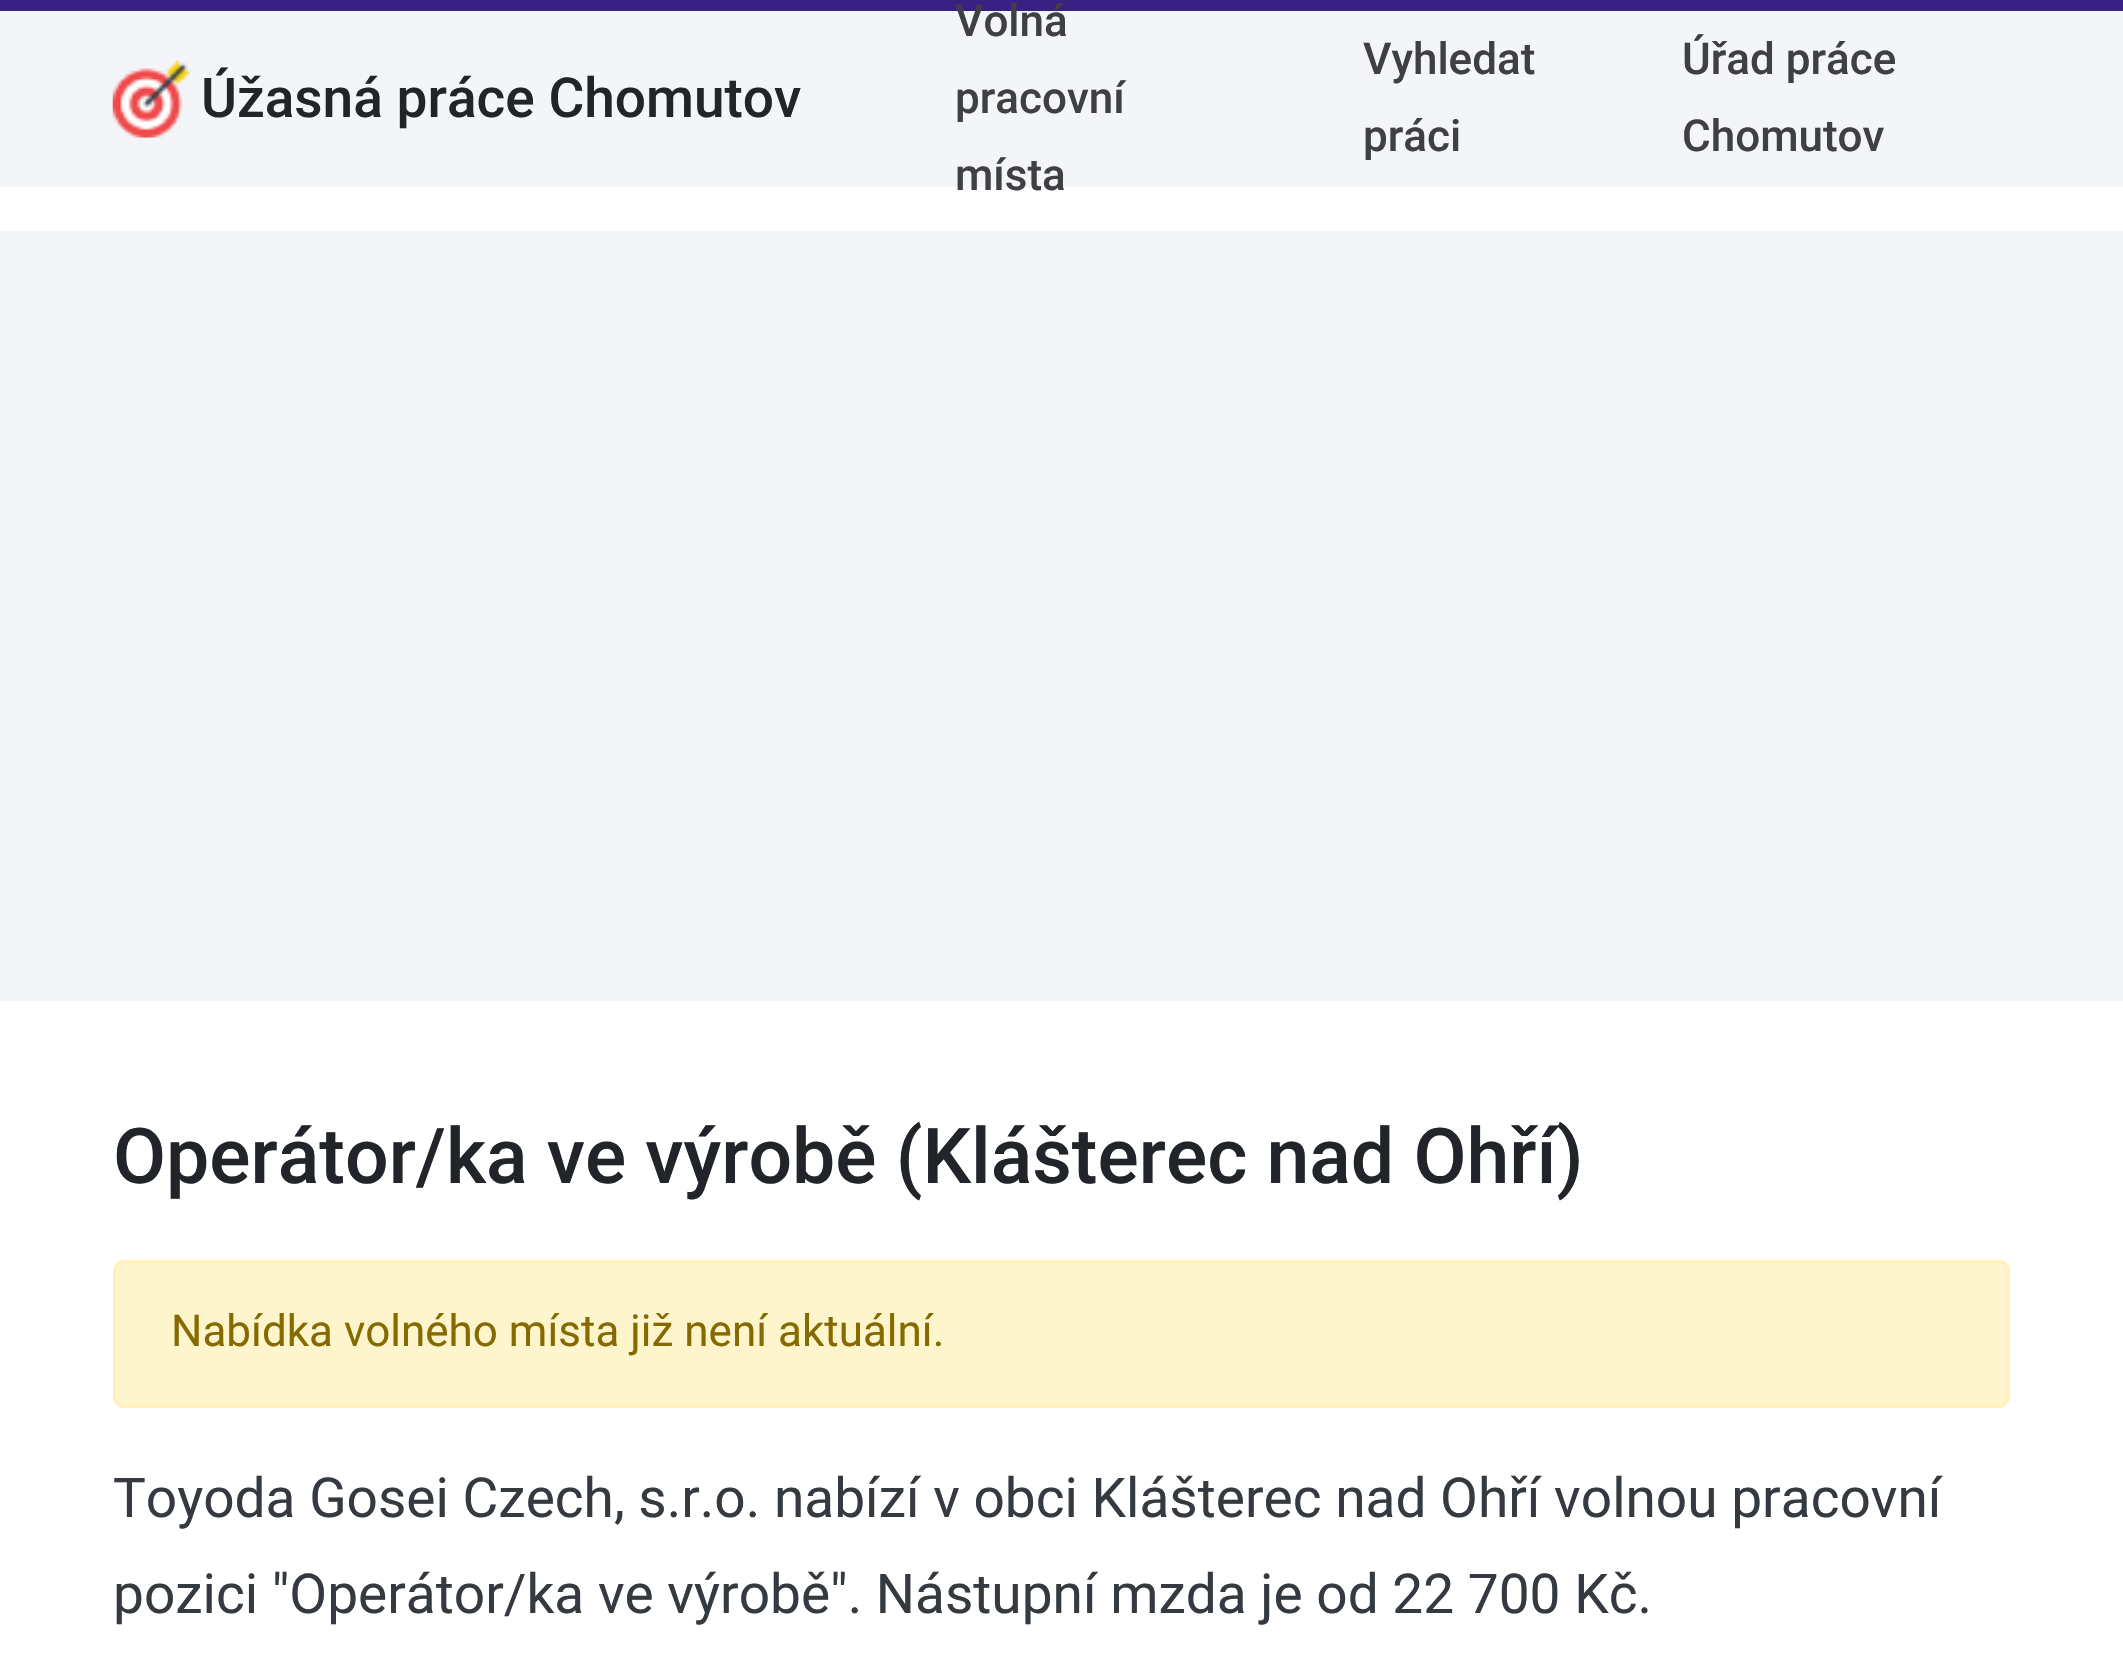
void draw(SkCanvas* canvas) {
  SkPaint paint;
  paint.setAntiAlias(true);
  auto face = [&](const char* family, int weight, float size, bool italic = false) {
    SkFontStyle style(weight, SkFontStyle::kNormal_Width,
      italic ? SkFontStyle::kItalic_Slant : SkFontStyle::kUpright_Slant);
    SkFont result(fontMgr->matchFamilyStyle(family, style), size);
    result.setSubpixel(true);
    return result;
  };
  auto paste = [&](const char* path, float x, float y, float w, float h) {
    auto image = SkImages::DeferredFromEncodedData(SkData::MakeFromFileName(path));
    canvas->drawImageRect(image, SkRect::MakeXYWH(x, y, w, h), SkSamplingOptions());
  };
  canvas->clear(0xffffffff);
  paint.setColor(0xff382183);
  canvas->drawRect(SkRect::MakeXYWH(0, 0, 2123, 11), paint);
  paint.setColor(0xfff3f5f9);
  canvas->drawRect(SkRect::MakeXYWH(0, 11, 2123, 176), paint);
  paste("img/1.png", 112, 60, 78, 78);
  canvas->drawRect(SkRect::MakeXYWH(0, 231, 2123, 770), paint);
  paint.setColor(0xfffff5cc);
  canvas->drawRoundRect(SkRect::MakeXYWH(114.5f, 1261.5f, 1894, 145), 9.5f, 9.5f, paint);
  paint.setStroke(true);
  paint.setStrokeWidth(3);
  paint.setColor(0xfffff1b8);
  canvas->drawRoundRect(SkRect::MakeXYWH(114.5f, 1261.5f, 1894, 145), 9.5f, 9.5f, paint);
  auto f0 = face("Roboto", 500, 55);
  paint.setStroke(false);
  paint.setColor(0xff212529);
  canvas->drawString("Úžasná práce Chomutov", 201, 117, f0, paint);
  auto f1 = face("Roboto", 500, 44);
  paint.setColor(0xff3f3f46);
  {
    const struct { const char* s; float x, y; } items[] = {
      {"Volná", 955, 36},
      {"pracovní", 955, 113},
      {"místa", 955, 190},
      {"Vyhledat", 1363, 74},
      {"práci", 1363, 151},
      {"Úřad práce", 1682, 74},
      {"Chomutov", 1682, 151},
    };
    for (auto [s, x, y] : items) {
      canvas->drawString(s, x, y, f1, paint);
    }
  }
  auto f2 = face("Roboto", 500, 77);
  paint.setColor(0xff212529);
  canvas->drawString("Operátor/ka ve výrobě (Klášterec nad Ohří)", 113, 1183, f2, paint);
  auto f3 = face("Roboto", 400, 44);
  paint.setColor(0xff856a00);
  canvas->drawString("Nabídka volného místa již není aktuální.", 171, 1346, f3, paint);
  auto f4 = face("Roboto", 400, 55);
  paint.setColor(0xff343a40);
  canvas->drawString("Toyoda Gosei Czech, s.r.o. nabízí v obci Klášterec nad Ohří volnou pracovní", 113, 1517, f4, paint);
  canvas->drawString("pozici \"Operátor/ka ve výrobě\". Nástupní mzda je od 22 700 Kč.", 113, 1613, f4, paint);
}
